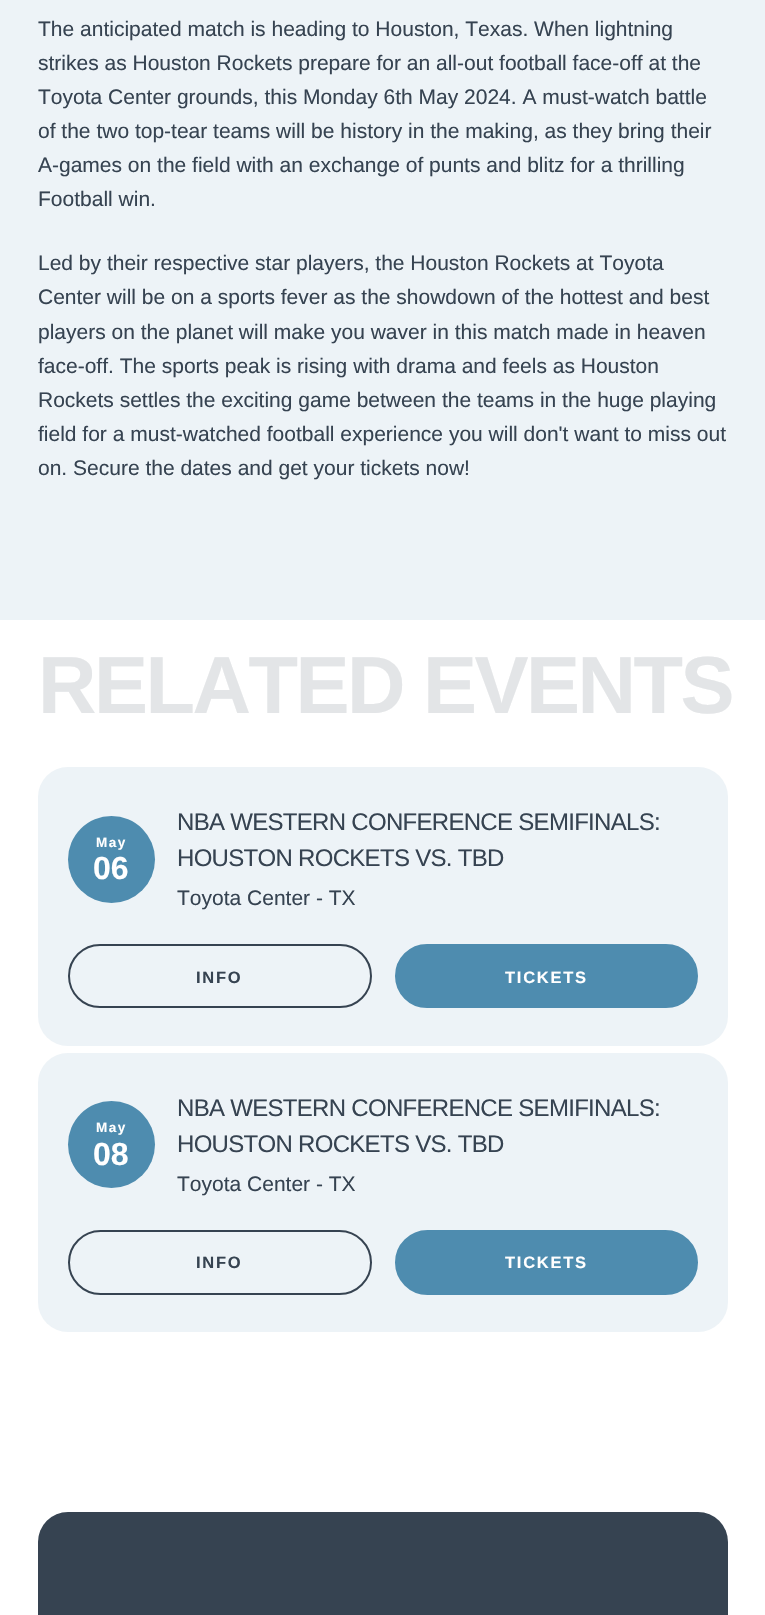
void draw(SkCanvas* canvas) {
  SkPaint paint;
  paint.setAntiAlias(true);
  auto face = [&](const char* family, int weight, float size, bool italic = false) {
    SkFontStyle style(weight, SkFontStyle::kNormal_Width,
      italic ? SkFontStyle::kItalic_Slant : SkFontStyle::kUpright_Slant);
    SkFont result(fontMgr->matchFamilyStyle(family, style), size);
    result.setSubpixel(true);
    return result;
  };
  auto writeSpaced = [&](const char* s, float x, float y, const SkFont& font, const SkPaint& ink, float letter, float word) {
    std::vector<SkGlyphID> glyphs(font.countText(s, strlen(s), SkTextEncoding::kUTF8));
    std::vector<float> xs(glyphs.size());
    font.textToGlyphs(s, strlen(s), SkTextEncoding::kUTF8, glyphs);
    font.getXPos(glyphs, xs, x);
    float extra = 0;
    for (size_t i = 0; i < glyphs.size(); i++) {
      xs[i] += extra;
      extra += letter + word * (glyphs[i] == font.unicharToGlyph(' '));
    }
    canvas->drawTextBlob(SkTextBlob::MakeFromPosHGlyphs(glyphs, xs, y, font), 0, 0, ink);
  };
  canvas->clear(0xffffffff);
  paint.setColor(0xffedf3f7);
  canvas->drawRect(SkRect::MakeXYWH(0, 0, 765, 620), paint);
  canvas->drawRoundRect(SkRect::MakeXYWH(38, 767, 690, 279), 30, 30, paint);
  paint.setColor(0xff4e8caf);
  canvas->drawCircle(111.5f, 859.5f, 43.5f, paint);
  paint.setStroke(true);
  paint.setStrokeWidth(2);
  paint.setColor(0xff364351);
  canvas->drawRoundRect(SkRect::MakeXYWH(69, 945, 302, 62), 31, 31, paint);
  paint.setStroke(false);
  paint.setColor(0xff4e8caf);
  canvas->drawRoundRect(SkRect::MakeXYWH(396, 945, 301, 62), 31, 31, paint);
  paint.setStroke(true);
  canvas->drawRoundRect(SkRect::MakeXYWH(396, 945, 301, 62), 31, 31, paint);
  paint.setStroke(false);
  paint.setColor(0xffedf3f7);
  canvas->drawRoundRect(SkRect::MakeXYWH(38, 1053, 690, 279), 30, 30, paint);
  paint.setColor(0xff4e8caf);
  canvas->drawCircle(111.5f, 1144.5f, 43.5f, paint);
  paint.setStroke(true);
  paint.setColor(0xff364351);
  canvas->drawRoundRect(SkRect::MakeXYWH(69, 1231, 302, 63), 31.5f, 31.5f, paint);
  paint.setStroke(false);
  paint.setColor(0xff4e8caf);
  canvas->drawRoundRect(SkRect::MakeXYWH(396, 1231, 301, 63), 31.5f, 31.5f, paint);
  paint.setStroke(true);
  canvas->drawRoundRect(SkRect::MakeXYWH(396, 1231, 301, 63), 31.5f, 31.5f, paint);
  paint.setStroke(false);
  paint.setColor(0xff364351);
  canvas->drawRoundRect(SkRect::MakeXYWH(38, 1512, 690, 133), 30, 30, paint);
  auto f0 = face("Liberation Sans", 400, 21);
  {
    const struct { const char* s; float x, y; } items[] = {
      {"The anticipated match is heading to Houston, Texas. When lightning", 38, 36},
      {"strikes as Houston Rockets prepare for an all-out football face-off at the", 38, 70},
      {"Toyota Center grounds, this Monday 6th May 2024. A must-watch battle", 38, 104},
      {"of the two top-tear teams will be history in the making, as they bring their", 38, 138},
      {"A-games on the field with an exchange of punts and blitz for a thrilling", 38, 172},
      {"Football win.", 38, 206},
      {"Led by their respective star players, the Houston Rockets at Toyota", 38, 270},
      {"Center will be on a sports fever as the showdown of the hottest and best", 38, 304},
      {"players on the planet will make you waver in this match made in heaven", 38, 339},
      {"face-off. The sports peak is rising with drama and feels as Houston", 38, 373},
      {"Rockets settles the exciting game between the teams in the huge playing", 38, 407},
      {"field for a must-watched football experience you will don't want to miss out", 38, 441},
      {"on. Secure the dates and get your tickets now!", 38, 475},
    };
    for (auto [s, x, y] : items) {
      canvas->drawString(s, x, y, f0, paint);
    }
  }
  auto f1 = face("Liberation Sans", 700, 81);
  paint.setColor(0xffe3e5e7);
  writeSpaced("RELATED EVENTS", 38, 713, f1, paint, -2.5f, 0);
  auto f2 = face("Liberation Sans", 700, 13.5f);
  paint.setColor(0xffffffff);
  writeSpaced("May", 96, 847, f2, paint, 1.5f, 0);
  auto f3 = face("Liberation Sans", 700, 32);
  canvas->drawString("06", 93, 879, f3, paint);
  auto f4 = face("Liberation Sans", 400, 24);
  paint.setColor(0xff364351);
  writeSpaced("NBA WESTERN CONFERENCE SEMIFINALS:", 177, 830, f4, paint, -0.7f, 0);
  writeSpaced("HOUSTON ROCKETS VS. TBD", 177, 866, f4, paint, -0.7f, 0);
  canvas->drawString("Toyota Center - TX", 177, 905, f0, paint);
  auto f5 = face("Liberation Sans", 700, 16.5f);
  writeSpaced("INFO", 196, 983, f5, paint, 1.75f, 0);
  paint.setColor(0xffffffff);
  writeSpaced("TICKETS", 505, 983, f5, paint, 1.75f, 0);
  writeSpaced("May", 96, 1132, f2, paint, 1.5f, 0);
  canvas->drawString("08", 93, 1165, f3, paint);
  paint.setColor(0xff364351);
  writeSpaced("NBA WESTERN CONFERENCE SEMIFINALS:", 177, 1116, f4, paint, -0.7f, 0);
  writeSpaced("HOUSTON ROCKETS VS. TBD", 177, 1152, f4, paint, -0.7f, 0);
  canvas->drawString("Toyota Center - TX", 177, 1191, f0, paint);
  writeSpaced("INFO", 196, 1268, f5, paint, 1.75f, 0);
  paint.setColor(0xffffffff);
  writeSpaced("TICKETS", 505, 1268, f5, paint, 1.75f, 0);
}
